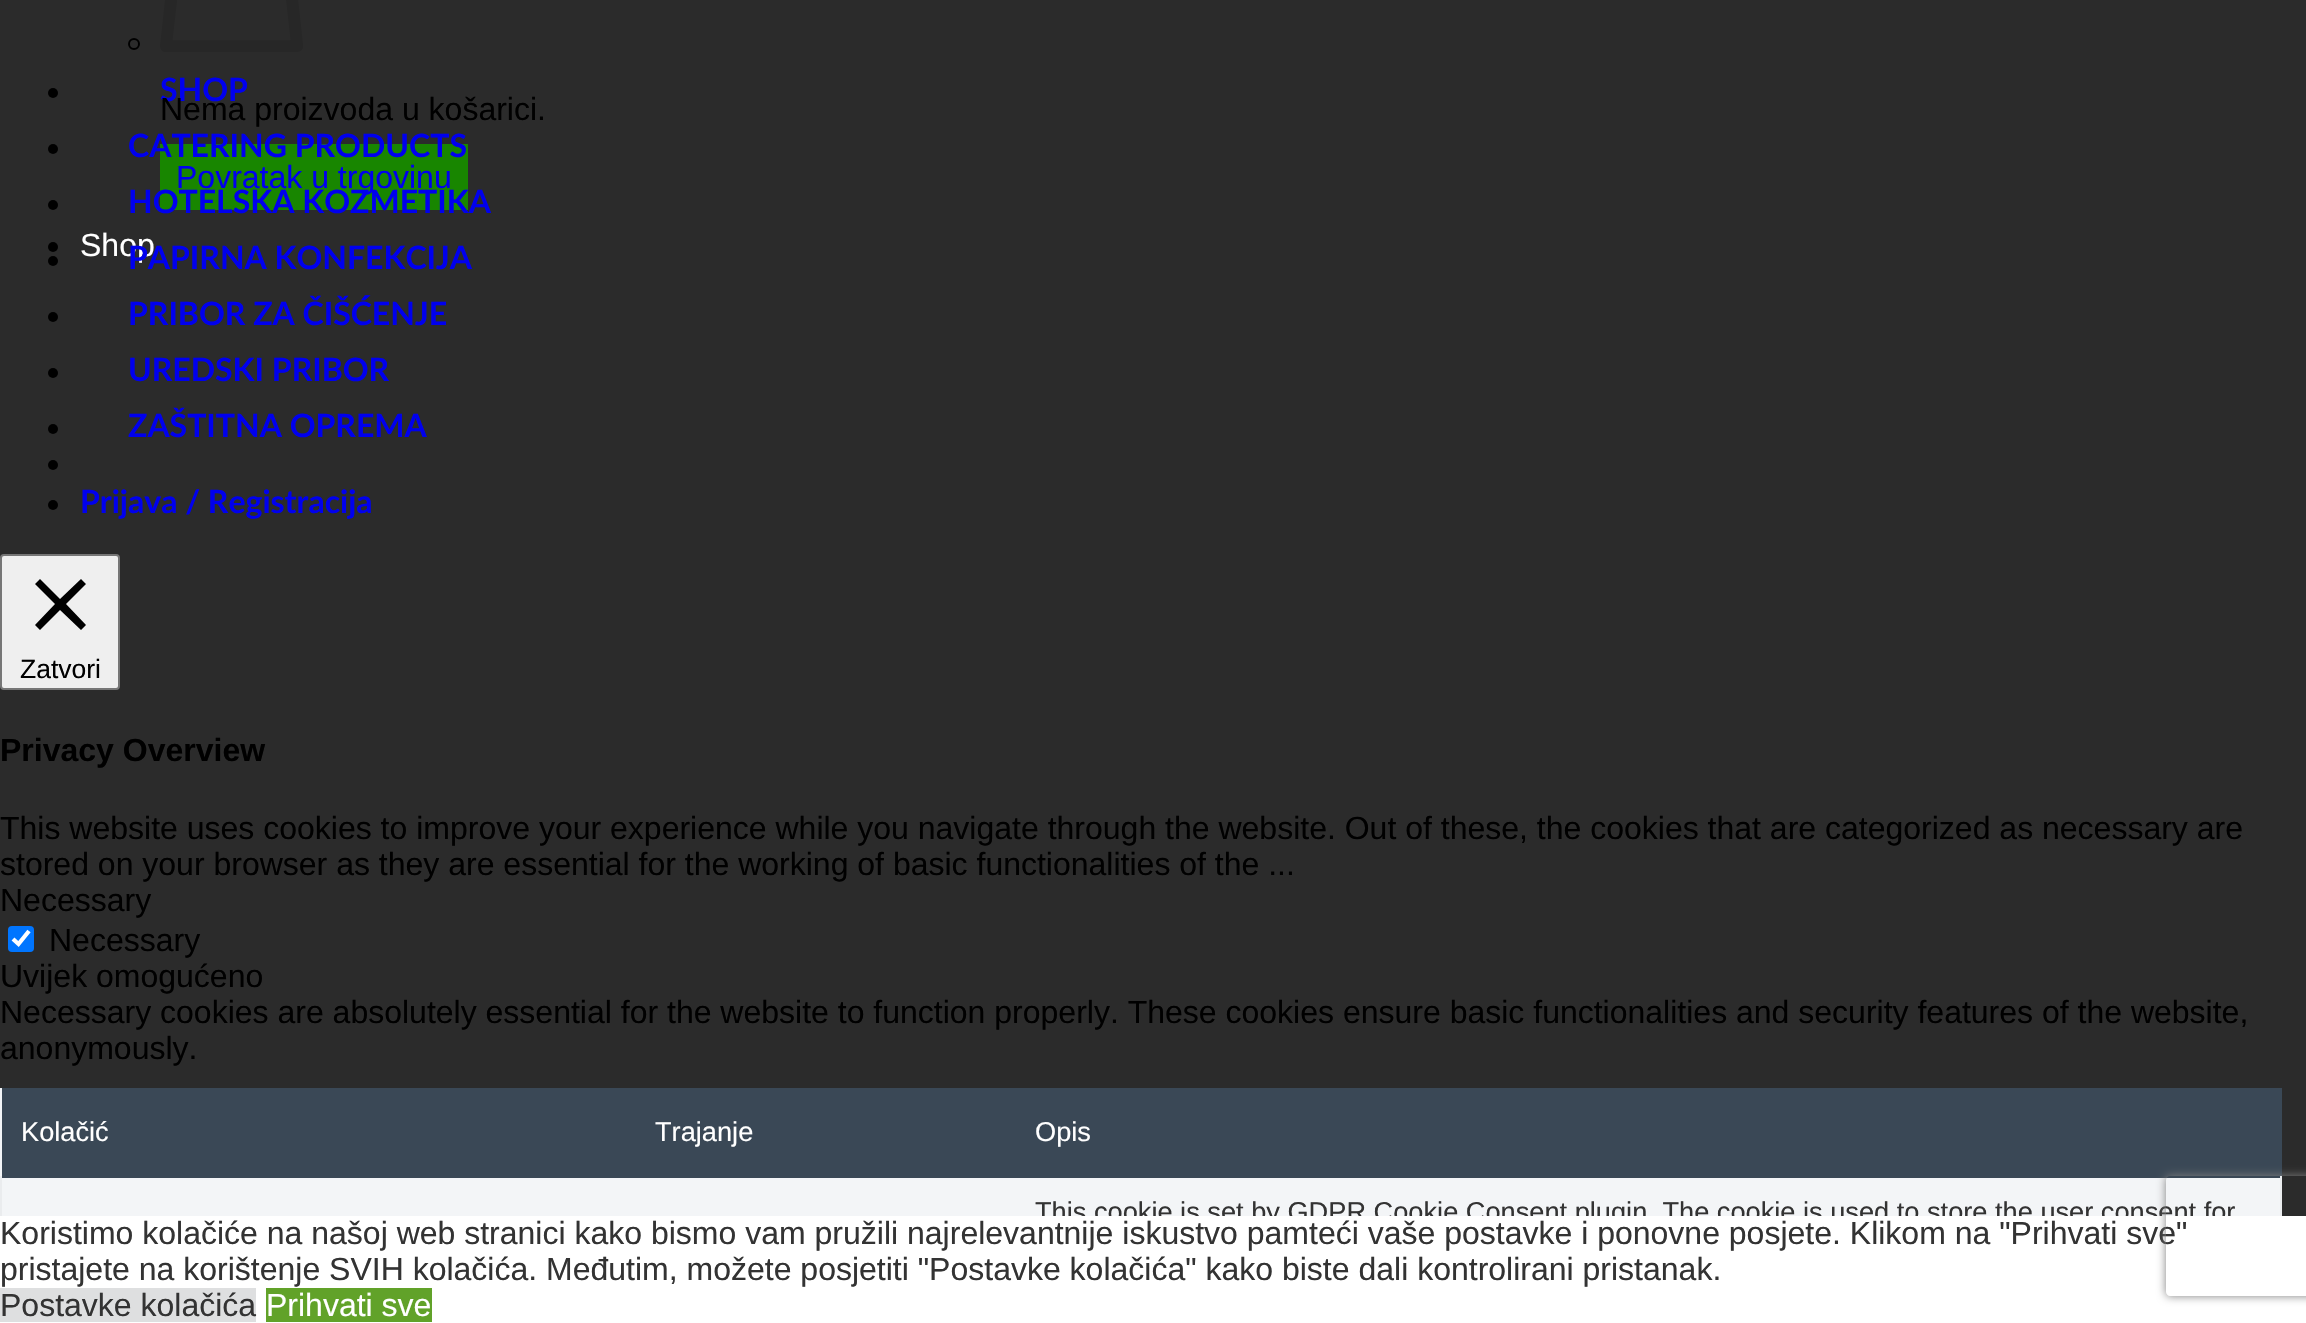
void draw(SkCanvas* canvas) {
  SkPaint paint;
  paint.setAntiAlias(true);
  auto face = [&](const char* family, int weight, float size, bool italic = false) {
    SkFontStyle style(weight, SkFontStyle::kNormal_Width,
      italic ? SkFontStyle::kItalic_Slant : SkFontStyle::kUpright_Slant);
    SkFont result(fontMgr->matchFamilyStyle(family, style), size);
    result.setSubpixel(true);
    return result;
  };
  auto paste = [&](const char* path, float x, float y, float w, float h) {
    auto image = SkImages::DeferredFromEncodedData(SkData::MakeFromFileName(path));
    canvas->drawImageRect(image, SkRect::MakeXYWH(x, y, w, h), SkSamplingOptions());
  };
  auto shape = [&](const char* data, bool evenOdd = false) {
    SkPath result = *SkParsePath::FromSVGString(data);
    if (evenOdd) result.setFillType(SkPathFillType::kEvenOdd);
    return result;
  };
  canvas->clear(0xff2b2b2b);
  paint.setColor(0xff000000);
  canvas->drawCircle(53, 93, 5, paint);
  canvas->drawCircle(53, 149, 5, paint);
  canvas->drawCircle(53, 205, 5, paint);
  canvas->drawCircle(53, 261, 5, paint);
  canvas->drawCircle(53, 317, 5, paint);
  canvas->drawCircle(53, 373, 5, paint);
  canvas->drawCircle(53, 429, 5, paint);
  canvas->drawCircle(53, 465, 5, paint);
  canvas->drawCircle(53, 505, 5, paint);
  paint.setStroke(true);
  paint.setStrokeWidth(2);
  canvas->drawCircle(134, 44, 5, paint);
  paste("img/1.png", 160, 0, 143, 52);
  paint.setStroke(false);
  paint.setColor(0xff188600);
  canvas->drawRect(SkRect::MakeXYWH(160, 144, 308, 66), paint);
  paint.setColor(0xff000000);
  canvas->drawCircle(53, 247, 5, paint);
  paint.setColor(0xffefefef);
  canvas->drawRoundRect(SkRect::MakeXYWH(1, 555, 118, 134), 3, 3, paint);
  paint.setStroke(true);
  paint.setColor(0xff767676);
  canvas->drawRoundRect(SkRect::MakeXYWH(1, 555, 118, 134), 3, 3, paint);
  paint.setStroke(false);
  paint.setColor(0xff000000);
  canvas->drawPath(shape("M86 584L81 579L60 599L40 579L35 584L55 604L35 625L40 630L60 610L81 630L86 625L66 604Z"), paint);
  paint.setColor(0xff0075ff);
  canvas->drawRoundRect(SkRect::MakeXYWH(8, 926, 26, 26), 4, 4, paint);
  paint.setStroke(true);
  paint.setStrokeWidth(4.2f);
  paint.setColor(0xffffffff);
  canvas->drawPath(shape("M13 939L18.5 944L29 931"), paint);
  paint.setStroke(false);
  {
    const struct { float x, y, w, h; SkColor color; } items[] = {
      {0, 1088, 2280, 128, 0xfff3f5f7},
      {2, 1088, 2280, 90, 0xff3a4856},
      {2280, 1176, 2, 40, 0xffeaecee},
      {0, 1176, 2, 40, 0xffeaecee},
    };
    for (auto [x, y, w, h, color] : items) {
      paint.setColor(color);
      canvas->drawRect(SkRect::MakeXYWH(x, y, w, h), paint);
    }
  }
  auto f0 = face("Lato", 700, 32);
  paint.setColor(0xff0000ee);
  {
    const struct { const char* s; float x, y; } items[] = {
      {"SHOP", 160, 101},
      {"CATERING PRODUCTS", 128, 157},
      {"HOTELSKA KOZMETIKA", 128, 213},
      {"PRIBOR ZA ČIŠĆENJE", 128, 325},
      {"UREDSKI PRIBOR", 128, 381},
      {"ZAŠTITNA OPREMA", 128, 437},
      {"Prijava / Registracija", 80, 513},
    };
    for (auto [s, x, y] : items) {
      canvas->drawString(s, x, y, f0, paint);
    }
  }
  auto f1 = face("Liberation Sans", 400, 32);
  paint.setColor(0xff000000);
  canvas->drawString("Nema proizvoda u košarici.", 160, 120, f1, paint);
  paint.setColor(0xff0000ee);
  canvas->drawString("Povratak u trgovinu", 176, 188, f1, paint);
  paint.setColor(0xffffffff);
  canvas->drawString("Shop", 80, 256, f1, paint);
  paint.setColor(0xff0000ee);
  canvas->drawString("PAPIRNA KONFEKCIJA", 128, 269, f0, paint);
  auto f2 = face("Liberation Sans", 400, 26.5f);
  paint.setColor(0xff000000);
  canvas->drawString("Zatvori", 20, 678, f2, paint);
  auto f3 = face("Liberation Sans", 700, 32);
  canvas->drawString("Privacy Overview", 0, 761, f3, paint);
  {
    const struct { const char* s; float x, y; } items[] = {
      {"This website uses cookies to improve your experience while you navigate through the website. Out of these, the cookies that are categorized as necessary are", 0, 839},
      {"stored on your browser as they are essential for the working of basic functionalities of the ...", 0, 875},
      {"Necessary", 0, 911},
      {"Necessary", 49, 951},
      {"Uvijek omogućeno", 0, 987},
      {"Necessary cookies are absolutely essential for the website to function properly. These cookies ensure basic functionalities and security features of the website,", 0, 1023},
      {"anonymously.", 0, 1059},
    };
    for (auto [s, x, y] : items) {
      canvas->drawString(s, x, y, f1, paint);
    }
  }
  auto f4 = face("Liberation Sans", 400, 27.2f);
  paint.setColor(0xffffffff);
  {
    const struct { const char* s; float x, y; } items[] = {
      {"Kolačić", 21, 1141},
      {"Trajanje", 655, 1141},
      {"Opis", 1035, 1141},
    };
    for (auto [s, x, y] : items) {
      canvas->drawString(s, x, y, f4, paint);
    }
  }
  paint.setColor(0xff333333);
  canvas->drawString("This cookie is set by GDPR Cookie Consent plugin. The cookie is used to store the user consent for", 1035, 1221, f4, paint);
  paint.setColor(0xffffffff);
  canvas->drawRect(SkRect::MakeXYWH(0, 1216, 2306, 107), paint);
  paint.setColor(0xff333333);
  canvas->drawString("Koristimo kolačiće na našoj web stranici kako bismo vam pružili najrelevantnije iskustvo pamteći vaše postavke i ponovne posjete. Klikom na \"Prihvati sve\"", 0, 1244, f1, paint);
  canvas->drawString("pristajete na korištenje SVIH kolačića. Međutim, možete posjetiti \"Postavke kolačića\" kako biste dali kontrolirani pristanak.", 0, 1280, f1, paint);
  paint.setColor(0xffdedfe0);
  canvas->drawRect(SkRect::MakeXYWH(0, 1288, 256, 34), paint);
  paint.setColor(0xff333333);
  canvas->drawString("Postavke kolačića", 0, 1316, f1, paint);
  paint.setColor(0xff61a229);
  canvas->drawRect(SkRect::MakeXYWH(266, 1288, 166, 34), paint);
  paint.setColor(0xffffffff);
  canvas->drawString("Prihvati sve", 266, 1316, f1, paint);
  canvas->save();
  canvas->clipPath(shape("M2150 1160H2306V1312H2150ZM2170 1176H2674C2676 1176 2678 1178 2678 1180V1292C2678 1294 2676 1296 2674 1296H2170C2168 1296 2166 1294 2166 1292V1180C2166 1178 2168 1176 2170 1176Z", true), true);
  paint.setColor(0xff808080);
  paint.setMaskFilter(SkMaskFilter::MakeBlur(kNormal_SkBlurStyle, 5));
  canvas->drawRoundRect(SkRect::MakeXYWH(2166, 1176, 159, 120), 4, 4, paint);
  paint.setMaskFilter(nullptr);
  canvas->restore();
}
